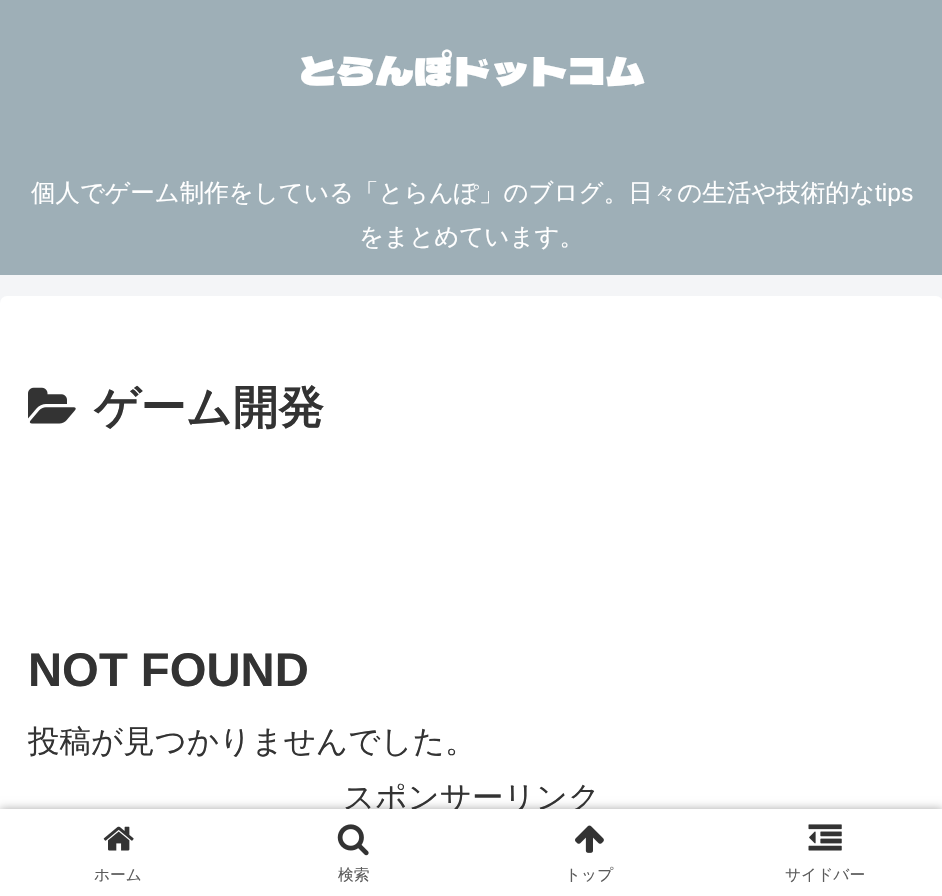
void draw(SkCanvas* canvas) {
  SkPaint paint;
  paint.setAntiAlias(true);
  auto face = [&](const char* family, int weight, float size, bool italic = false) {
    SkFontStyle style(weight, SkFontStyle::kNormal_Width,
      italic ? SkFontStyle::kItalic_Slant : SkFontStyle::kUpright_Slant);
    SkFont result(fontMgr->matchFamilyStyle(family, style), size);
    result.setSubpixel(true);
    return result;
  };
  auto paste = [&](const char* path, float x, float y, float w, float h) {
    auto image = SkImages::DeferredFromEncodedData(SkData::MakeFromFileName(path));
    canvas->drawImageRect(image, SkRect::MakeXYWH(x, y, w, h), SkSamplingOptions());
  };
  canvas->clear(0xfff4f5f7);
  paint.setColor(0xff9eafb7);
  canvas->drawRect(SkRect::MakeXYWH(0, 0, 942, 275), paint);
  paint.setColor(0xffffffff);
  canvas->drawRoundRect(SkRect::MakeXYWH(0, 296, 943, 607), 7, 7, paint);
  paste("img/1.png", 28, 387, 48, 37);
  paint.setColor(0xffa9a9a9);
  paint.setMaskFilter(SkMaskFilter::MakeBlur(kNormal_SkBlurStyle, 4.5f));
  canvas->drawRect(SkRect::MakeXYWH(0, 809, 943, 87), paint);
  paint.setMaskFilter(nullptr);
  auto f0 = face("Dela Gothic One", 400, 38.5f);
  paint.setColor(0xffffffff);
  canvas->drawString("とらんぽドットコム", 298, 86, f0, paint);
  auto f1 = face("WenQuanYi Zen Hei", 500, 24.5f);
  canvas->drawString("個人でゲーム制作をしている「とらんぽ」のブログ。日々の生活や技術的な", 31, 201, f1, paint);
  auto f2 = face("Liberation Sans", 400, 24.5f);
  canvas->drawString("tips", 875, 201, f2, paint);
  canvas->drawString("をまとめています。", 359, 245, f1, paint);
  auto f3 = face("WenQuanYi Zen Hei", 700, 45.5f);
  paint.setColor(0xff333333);
  canvas->drawString("ゲーム開発", 94, 423, f3, paint);
  auto f4 = face("Liberation Sans", 700, 47.25f);
  canvas->drawString("NOT FOUND", 28, 686, f4, paint);
  auto f5 = face("WenQuanYi Zen Hei", 500, 31.5f);
  canvas->drawString("投稿が見つかりませんでした。", 28, 752, f5, paint);
  canvas->drawString("スポンサーリンク", 343, 808, f5, paint);
  paint.setColor(0xffffffff);
  canvas->drawRect(SkRect::MakeXYWH(0, 809, 942, 87), paint);
  paste("img/2.png", 103, 826, 31, 25);
  auto f6 = face("WenQuanYi Zen Hei", 500, 15.75f);
  paint.setColor(0xff5c5c5c);
  canvas->drawString("ホーム", 94, 880, f6, paint);
  paste("img/3.png", 337, 824, 32, 32);
  canvas->drawString("検索", 338, 880, f6, paint);
  paste("img/4.png", 575, 825, 29, 28);
  canvas->drawString("トップ", 565, 880, f6, paint);
  paste("img/5.png", 808, 824, 34, 27);
  canvas->drawString("サイドバー", 785, 880, f6, paint);
}
